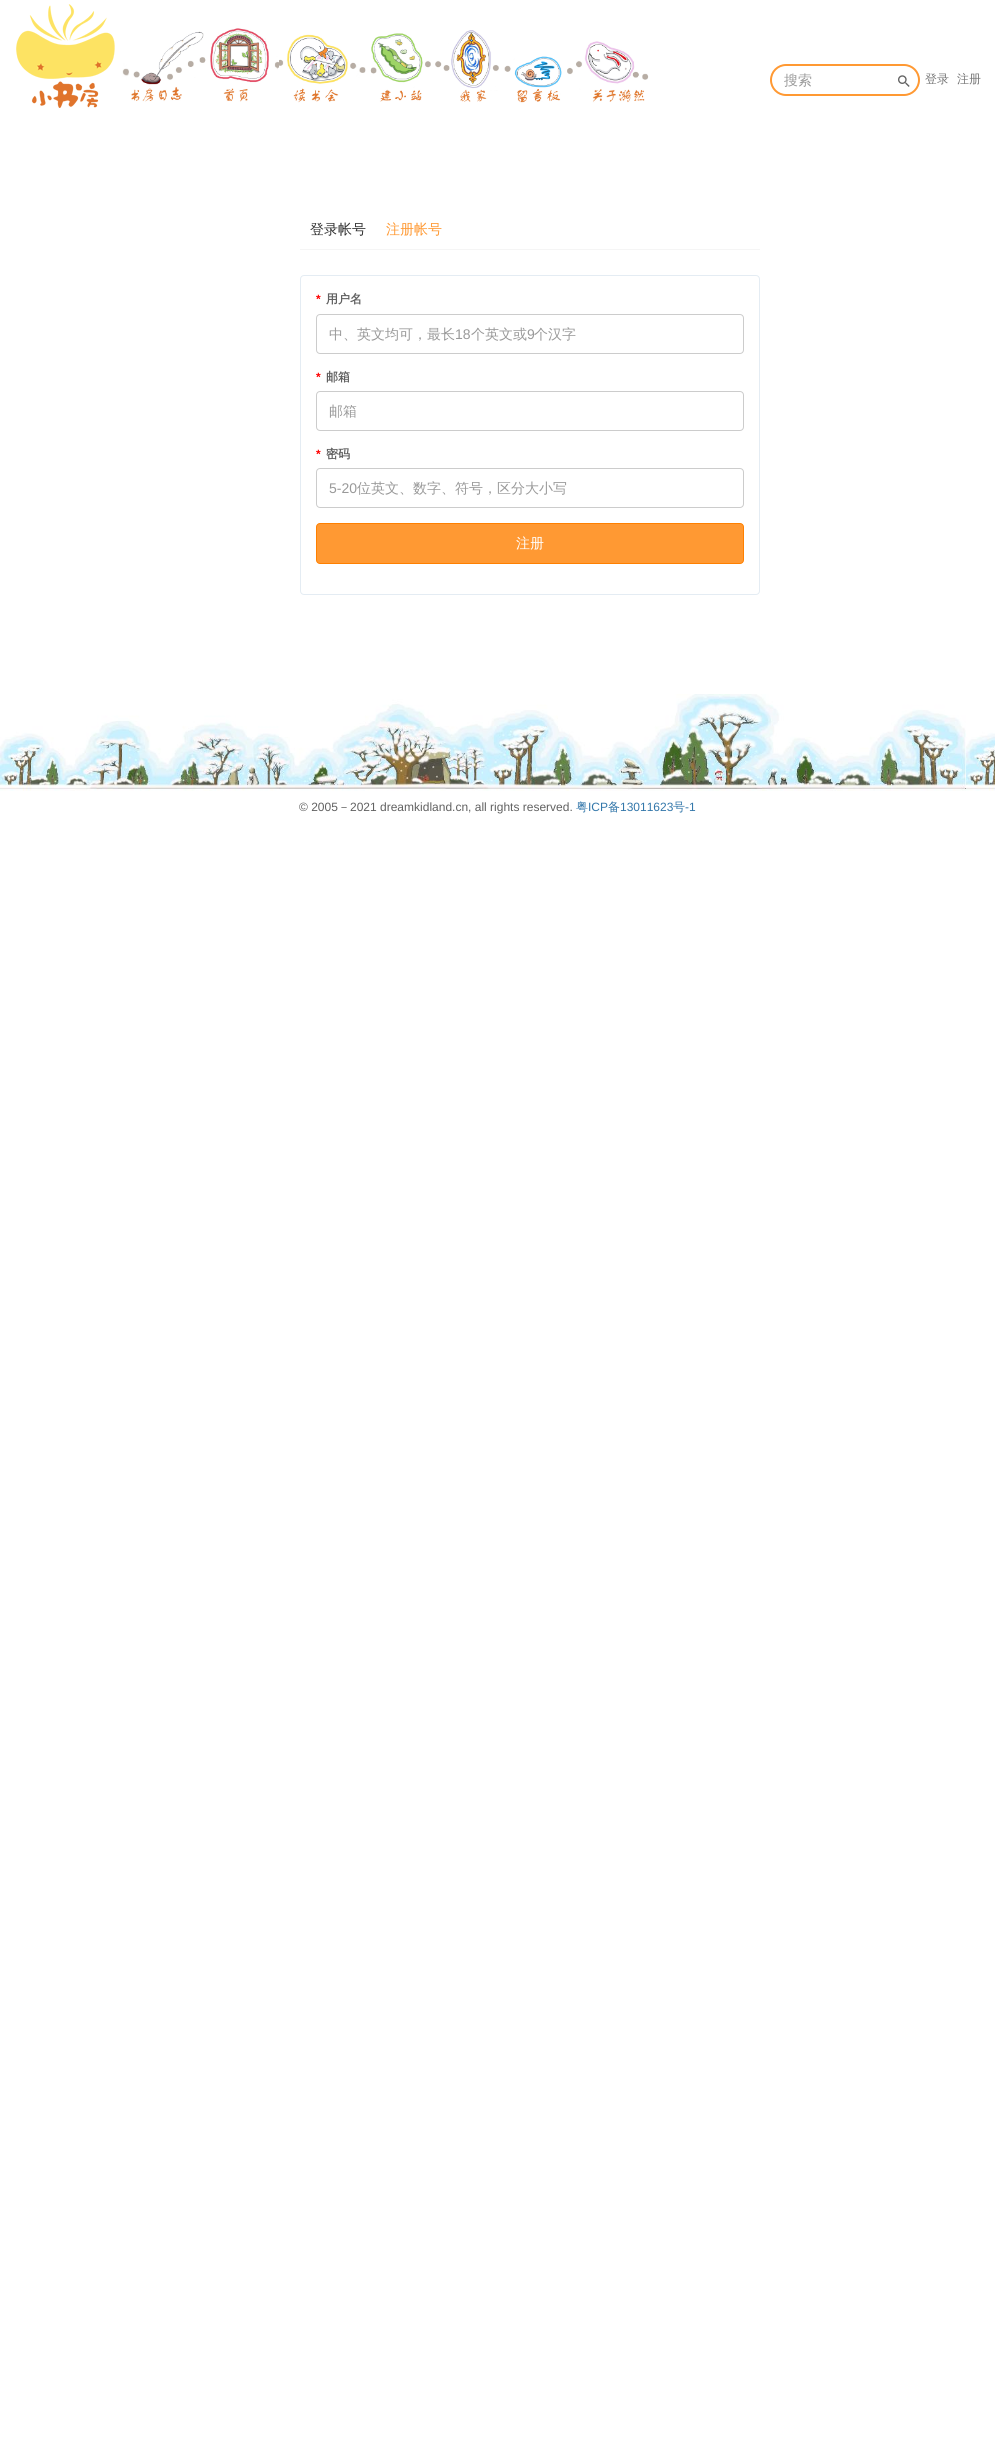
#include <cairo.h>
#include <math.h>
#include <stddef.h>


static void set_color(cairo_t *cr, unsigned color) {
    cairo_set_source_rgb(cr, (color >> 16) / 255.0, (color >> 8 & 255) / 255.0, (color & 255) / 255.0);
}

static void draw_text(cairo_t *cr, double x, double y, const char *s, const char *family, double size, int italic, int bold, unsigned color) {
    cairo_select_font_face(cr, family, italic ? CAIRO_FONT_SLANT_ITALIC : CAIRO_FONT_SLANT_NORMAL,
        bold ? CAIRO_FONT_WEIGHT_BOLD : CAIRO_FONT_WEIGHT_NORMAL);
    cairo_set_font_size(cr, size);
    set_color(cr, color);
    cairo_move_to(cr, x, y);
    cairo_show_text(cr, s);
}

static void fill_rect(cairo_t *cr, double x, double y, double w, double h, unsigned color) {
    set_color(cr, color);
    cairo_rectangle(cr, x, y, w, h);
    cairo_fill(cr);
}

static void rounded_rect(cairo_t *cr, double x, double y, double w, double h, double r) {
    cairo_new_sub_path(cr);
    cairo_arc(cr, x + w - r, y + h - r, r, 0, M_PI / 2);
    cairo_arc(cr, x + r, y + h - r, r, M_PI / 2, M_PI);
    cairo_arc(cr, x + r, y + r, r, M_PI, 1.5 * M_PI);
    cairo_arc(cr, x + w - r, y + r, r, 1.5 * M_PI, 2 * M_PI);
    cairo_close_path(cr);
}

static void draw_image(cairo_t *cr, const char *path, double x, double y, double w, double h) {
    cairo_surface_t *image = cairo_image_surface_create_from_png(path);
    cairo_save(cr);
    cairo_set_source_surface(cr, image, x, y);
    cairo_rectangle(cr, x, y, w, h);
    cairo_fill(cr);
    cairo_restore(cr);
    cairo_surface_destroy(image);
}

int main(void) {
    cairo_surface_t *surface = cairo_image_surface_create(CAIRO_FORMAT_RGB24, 995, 2458);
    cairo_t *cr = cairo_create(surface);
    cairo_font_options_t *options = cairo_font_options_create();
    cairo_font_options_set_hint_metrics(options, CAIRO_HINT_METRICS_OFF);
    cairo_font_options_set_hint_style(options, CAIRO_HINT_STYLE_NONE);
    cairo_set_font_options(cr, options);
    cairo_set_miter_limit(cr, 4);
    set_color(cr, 0xFFFFFF);
    cairo_paint(cr);
    draw_image(cr, "assets/img1.png", 16, 4, 99, 104);
    draw_image(cr, "assets/img2.png", 122, 31, 84, 71);
    draw_image(cr, "assets/img3.png", 210, 28, 69, 74);
    draw_image(cr, "assets/img4.png", 279, 34, 63, 69);
    draw_image(cr, "assets/img5.png", 342, 33, 89, 69);
    draw_image(cr, "assets/img6.png", 435, 30, 64, 72);
    draw_image(cr, "assets/img7.png", 504, 56, 74, 47);
    draw_image(cr, "assets/img8.png", 578, 41, 71, 62);
    rounded_rect(cr, 771, 65, 148, 30, 15);
    set_color(cr, 0xFF9933);
    cairo_stroke(cr);
    draw_text(cr, 784, 85, "搜索", "WenQuanYi Zen Hei Medium", 14, 0, 0, 0x999999);
    draw_image(cr, "assets/img9.png", 898, 75, 12, 12);
    draw_text(cr, 925, 83, "登录", "WenQuanYi Zen Hei Medium", 12, 0, 0, 0x777777);
    draw_text(cr, 957, 83, "注册", "WenQuanYi Zen Hei Medium", 12, 0, 0, 0x777777);
    fill_rect(cr, 300, 249, 460, 1, 0xF5F5F5);
    draw_text(cr, 310, 234, "登录帐号", "WenQuanYi Zen Hei Medium", 14, 0, 0, 0x313131);
    draw_text(cr, 386, 234, "注册帐号", "WenQuanYi Zen Hei Medium", 14, 0, 0, 0xFF9933);
    rounded_rect(cr, 300.5, 275.5, 459, 319, 3.5);
    set_color(cr, 0xE4ECF3);
    cairo_set_line_width(cr, 1);
    cairo_stroke(cr);
    draw_text(cr, 316, 303, "*", "Liberation Sans", 12, 0, 1, 0xFF0000);
    draw_text(cr, 326, 303, "用户名", "WenQuanYi Zen Hei", 12, 0, 1, 0x616161);
    rounded_rect(cr, 316.5, 314.5, 427, 39, 3.5);
    set_color(cr, 0xCCCCCC);
    cairo_stroke(cr);
    draw_text(cr, 329, 339, "中、英文均可，最长", "WenQuanYi Zen Hei Medium", 14, 0, 0, 0x999999);
    draw_text(cr, 455, 339, "18", "Liberation Sans", 14, 0, 0, 0x999999);
    draw_text(cr, 471, 339, "个英文或", "WenQuanYi Zen Hei Medium", 14, 0, 0, 0x999999);
    draw_text(cr, 527, 339, "9", "Liberation Sans", 14, 0, 0, 0x999999);
    draw_text(cr, 534, 339, "个汉字", "WenQuanYi Zen Hei Medium", 14, 0, 0, 0x999999);
    draw_text(cr, 316, 381, "*", "Liberation Sans", 12, 0, 1, 0xFF0000);
    draw_text(cr, 326, 381, "邮箱", "WenQuanYi Zen Hei", 12, 0, 1, 0x616161);
    rounded_rect(cr, 316.5, 391.5, 427, 39, 3.5);
    set_color(cr, 0xCCCCCC);
    cairo_stroke(cr);
    draw_text(cr, 329, 416, "邮箱", "WenQuanYi Zen Hei Medium", 14, 0, 0, 0x999999);
    draw_text(cr, 316, 458, "*", "Liberation Sans", 12, 0, 1, 0xFF0000);
    draw_text(cr, 326, 458, "密码", "WenQuanYi Zen Hei", 12, 0, 1, 0x616161);
    rounded_rect(cr, 316.5, 468.5, 427, 39, 3.5);
    set_color(cr, 0xCCCCCC);
    cairo_stroke(cr);
    draw_text(cr, 329, 493, "5-20", "Liberation Sans", 14, 0, 0, 0x999999);
    draw_text(cr, 357, 493, "位英文、数字、符号，区分大小写", "WenQuanYi Zen Hei Medium", 14, 0, 0, 0x999999);
    set_color(cr, 0xFF9933);
    rounded_rect(cr, 316.5, 523.5, 427, 40, 3.5);
    cairo_fill_preserve(cr);
    set_color(cr, 0xFF8000);
    cairo_stroke(cr);
    draw_text(cr, 516, 548, "注册", "WenQuanYi Zen Hei Medium", 14, 0, 0, 0xFFFFFF);
    draw_image(cr, "assets/img10.png", 0, 694, 995, 97);
    draw_text(cr, 299, 811, "© 2005", "Liberation Sans", 12, 0, 0, 0x616161);
    draw_text(cr, 338, 811, "－", "WenQuanYi Zen Hei Medium", 12, 0, 0, 0x616161);
    draw_text(cr, 350, 811, "2021 dreamkidland.cn, all rights reserved.", "Liberation Sans", 12, 0, 0, 0x616161);
    draw_text(cr, 576, 811, "粤", "WenQuanYi Zen Hei Medium", 12, 0, 0, 0x3377AA);
    draw_text(cr, 588, 811, "ICP", "Liberation Sans", 12, 0, 0, 0x3377AA);
    draw_text(cr, 608, 811, "备", "WenQuanYi Zen Hei Medium", 12, 0, 0, 0x3377AA);
    draw_text(cr, 620, 811, "13011623", "Liberation Sans", 12, 0, 0, 0x3377AA);
    draw_text(cr, 673, 811, "号", "WenQuanYi Zen Hei Medium", 12, 0, 0, 0x3377AA);
    draw_text(cr, 685, 811, "-1", "Liberation Sans", 12, 0, 0, 0x3377AA);
    cairo_surface_write_to_png(surface, "output.png");
    cairo_font_options_destroy(options);
    cairo_destroy(cr);
    cairo_surface_destroy(surface);
    return 0;
}
